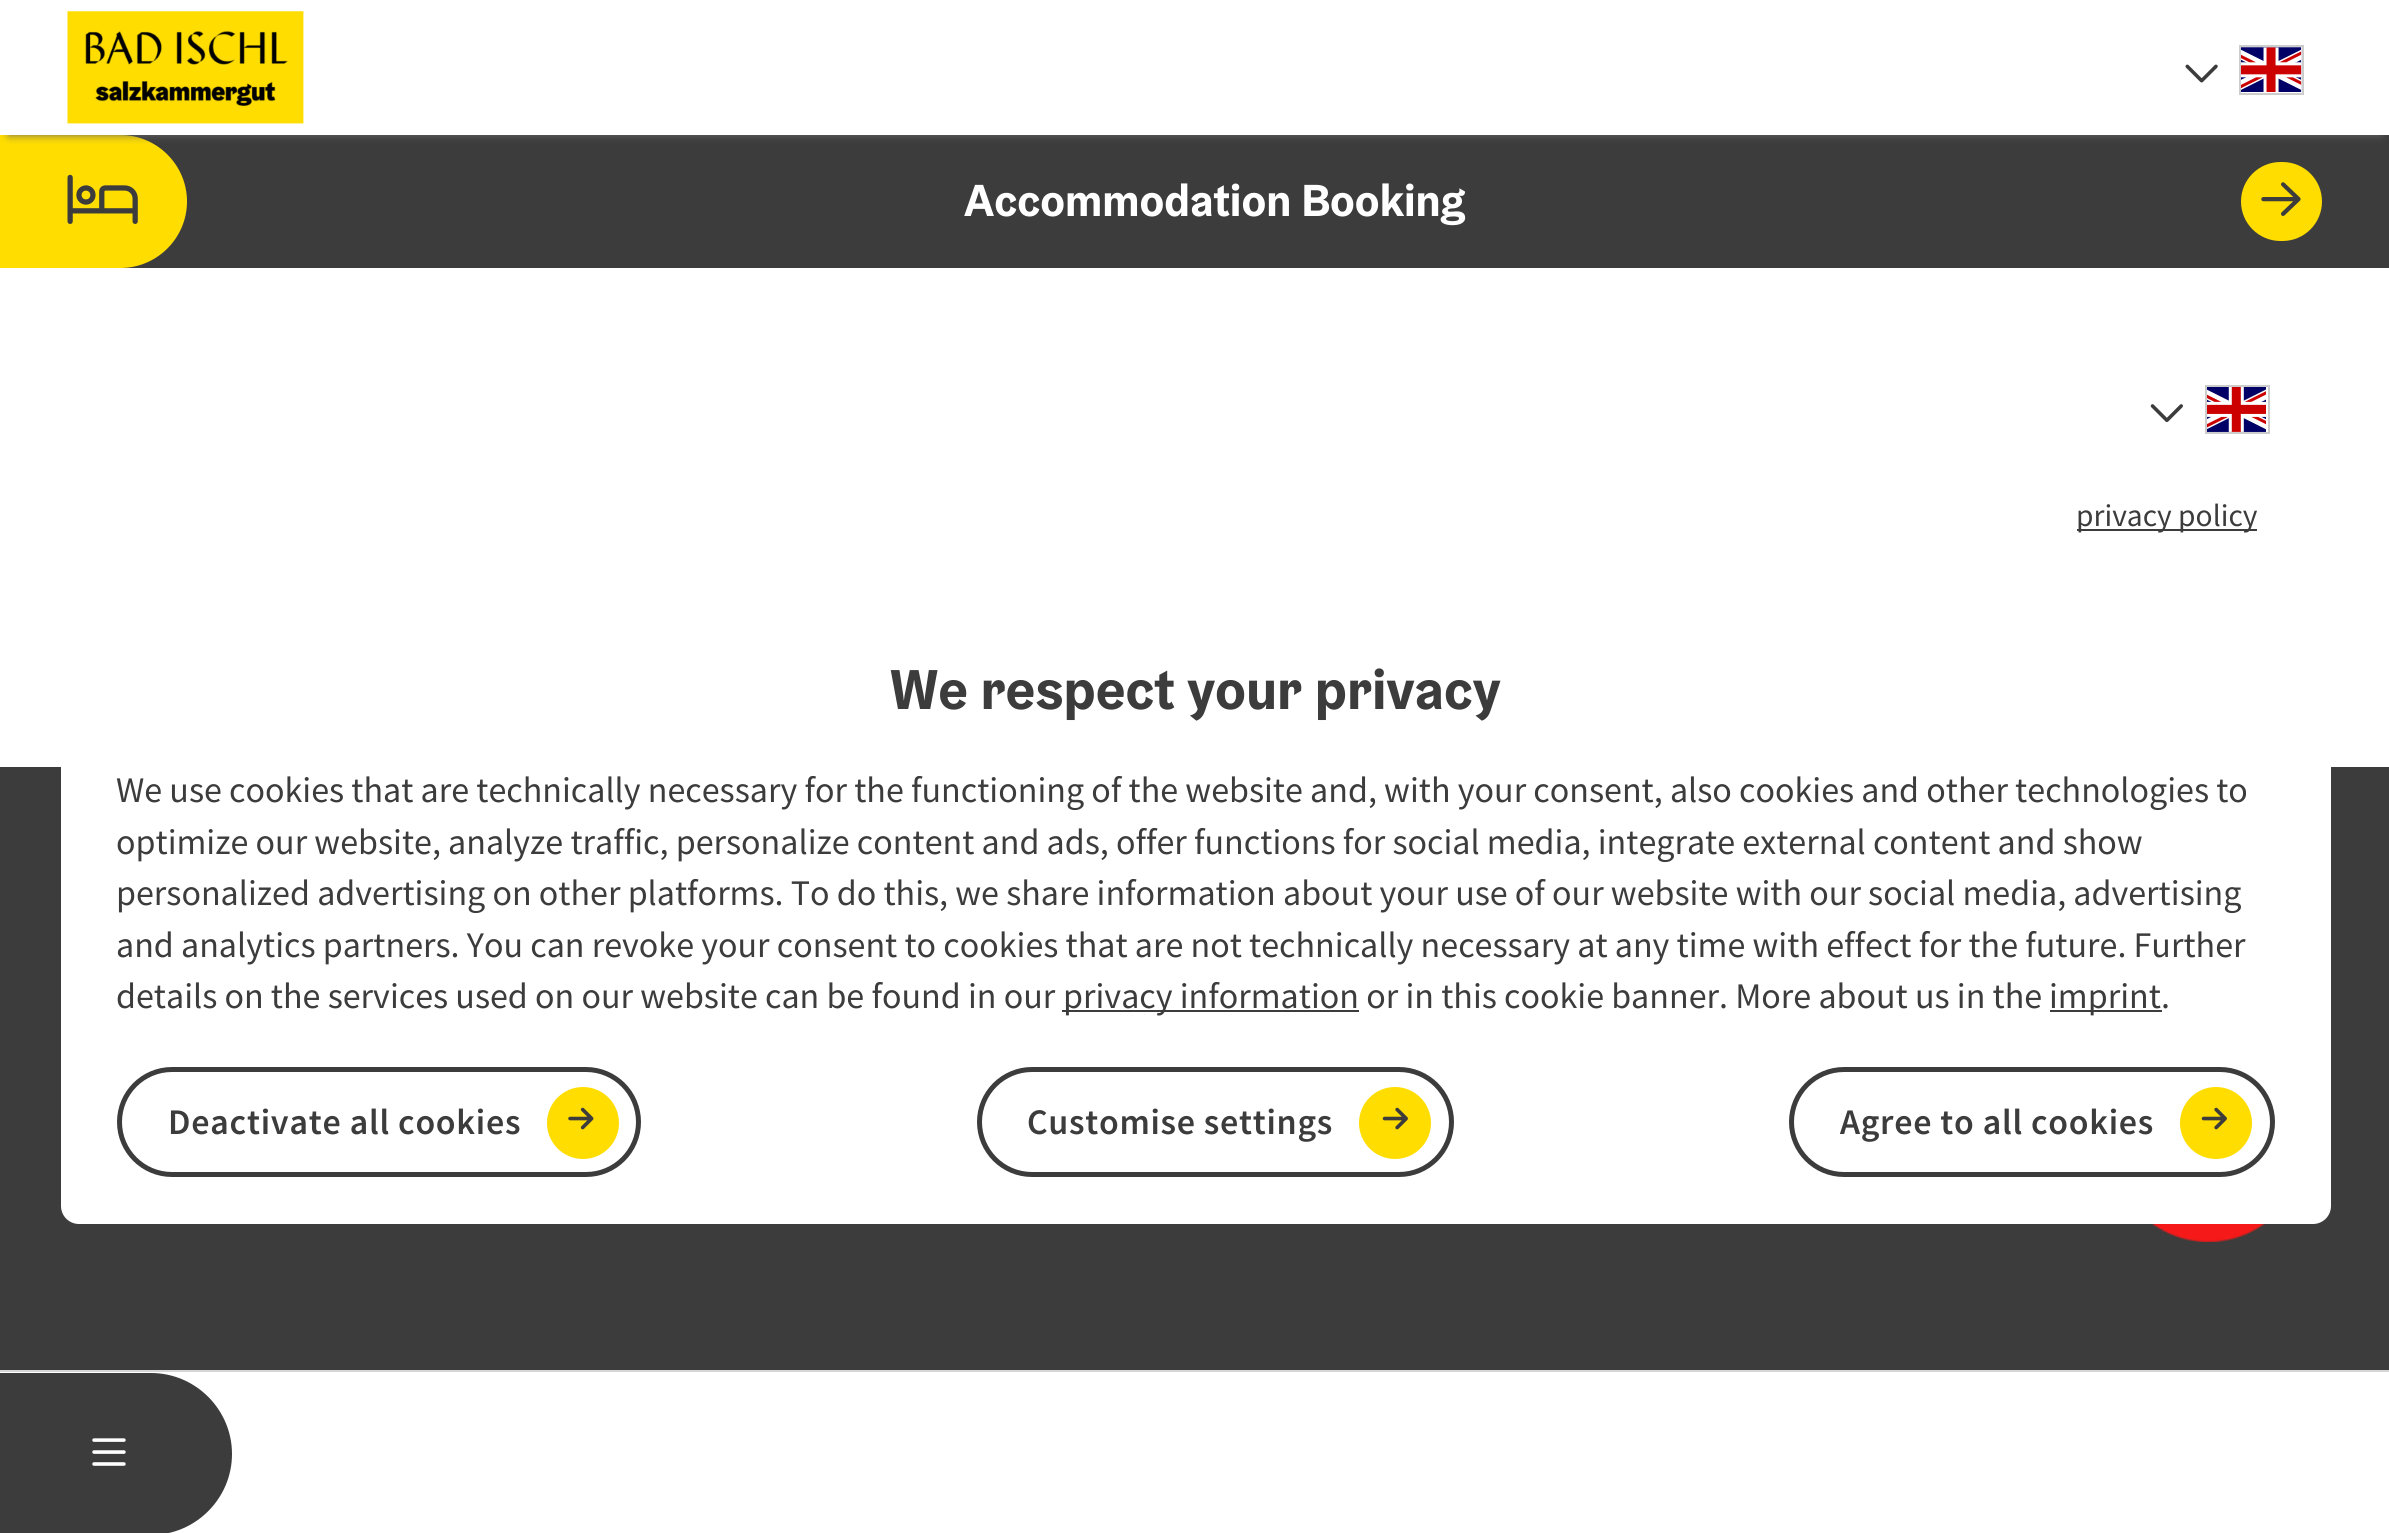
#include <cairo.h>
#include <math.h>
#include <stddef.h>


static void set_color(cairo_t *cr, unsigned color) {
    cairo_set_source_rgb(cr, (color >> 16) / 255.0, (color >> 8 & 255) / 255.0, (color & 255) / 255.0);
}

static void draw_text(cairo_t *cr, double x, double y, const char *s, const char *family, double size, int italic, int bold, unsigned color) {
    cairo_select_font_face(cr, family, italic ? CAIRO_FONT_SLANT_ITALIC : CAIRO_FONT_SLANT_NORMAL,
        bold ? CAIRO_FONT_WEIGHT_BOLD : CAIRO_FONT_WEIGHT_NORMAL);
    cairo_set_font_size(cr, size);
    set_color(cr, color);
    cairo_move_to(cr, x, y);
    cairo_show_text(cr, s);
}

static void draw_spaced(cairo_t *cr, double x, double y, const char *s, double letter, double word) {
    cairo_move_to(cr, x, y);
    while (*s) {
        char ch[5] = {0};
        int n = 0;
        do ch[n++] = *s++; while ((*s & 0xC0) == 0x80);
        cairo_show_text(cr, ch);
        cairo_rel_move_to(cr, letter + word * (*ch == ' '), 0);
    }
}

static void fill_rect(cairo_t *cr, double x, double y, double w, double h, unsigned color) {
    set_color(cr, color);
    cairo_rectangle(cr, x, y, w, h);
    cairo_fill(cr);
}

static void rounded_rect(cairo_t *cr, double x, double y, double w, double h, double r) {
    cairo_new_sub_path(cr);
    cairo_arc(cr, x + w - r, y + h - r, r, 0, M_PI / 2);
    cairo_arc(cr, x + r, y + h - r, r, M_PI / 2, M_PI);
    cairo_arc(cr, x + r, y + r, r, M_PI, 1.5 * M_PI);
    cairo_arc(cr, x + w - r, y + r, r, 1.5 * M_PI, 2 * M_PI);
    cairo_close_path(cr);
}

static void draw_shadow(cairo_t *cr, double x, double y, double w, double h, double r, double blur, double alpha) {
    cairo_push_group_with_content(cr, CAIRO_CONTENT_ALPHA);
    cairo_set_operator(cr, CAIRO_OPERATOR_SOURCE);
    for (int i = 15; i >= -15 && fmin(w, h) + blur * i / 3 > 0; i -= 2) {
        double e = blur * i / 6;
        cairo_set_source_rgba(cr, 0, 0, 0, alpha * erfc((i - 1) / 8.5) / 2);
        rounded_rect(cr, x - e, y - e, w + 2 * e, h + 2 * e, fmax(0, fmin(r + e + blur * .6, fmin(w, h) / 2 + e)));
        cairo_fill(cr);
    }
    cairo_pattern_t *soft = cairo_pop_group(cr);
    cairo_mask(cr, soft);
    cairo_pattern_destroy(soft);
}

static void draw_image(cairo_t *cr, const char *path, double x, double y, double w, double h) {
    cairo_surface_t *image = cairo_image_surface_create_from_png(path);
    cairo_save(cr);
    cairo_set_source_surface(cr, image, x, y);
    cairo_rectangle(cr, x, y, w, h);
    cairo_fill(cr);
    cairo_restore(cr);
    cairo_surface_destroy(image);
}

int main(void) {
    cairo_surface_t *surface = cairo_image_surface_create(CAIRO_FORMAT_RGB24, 2389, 1533);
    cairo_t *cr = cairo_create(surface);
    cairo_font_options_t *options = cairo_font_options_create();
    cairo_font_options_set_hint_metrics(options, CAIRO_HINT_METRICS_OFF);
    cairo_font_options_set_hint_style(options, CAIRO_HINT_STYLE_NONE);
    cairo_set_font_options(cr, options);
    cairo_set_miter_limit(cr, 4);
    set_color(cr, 0xFFFFFF);
    cairo_paint(cr);
    fill_rect(cr, 121, 135, 2268, 133, 0x3C3C3C);
    set_color(cr, 0xFFDD00);
    cairo_new_path(cr);
    cairo_move_to(cr, 0, 135);
    cairo_line_to(cr, 120.5, 135);
    cairo_curve_to(cr, 157, 135, 187, 165, 187, 201.5);
    cairo_curve_to(cr, 187, 238, 157, 268, 120.5, 268);
    cairo_line_to(cr, 0, 268);
    cairo_close_path(cr);
    cairo_fill(cr);
    cairo_save(cr);
    cairo_rectangle(cr, 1, 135, 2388, 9);
    cairo_clip(cr);
    set_color(cr, 0x666666);
    draw_shadow(cr, 9, 18, 2372, 117, 0, 4.5, 1);
    cairo_restore(cr);
    draw_image(cr, "assets/img1.png", 67, 11, 237, 113);
    draw_image(cr, "assets/img2.png", 2185, 64, 33, 19);
    draw_image(cr, "assets/img3.png", 2241, 47, 61, 45);
    cairo_rectangle(cr, 2240, 46, 63, 48);
    set_color(cr, 0xCCCCCC);
    cairo_stroke(cr);
    fill_rect(cr, 0, 1370, 2389, 2, 0xD6D6D6);
    set_color(cr, 0x3C3C3C);
    cairo_new_path(cr);
    cairo_move_to(cr, 0, 1373);
    cairo_line_to(cr, 151, 1373);
    cairo_curve_to(cr, 195.5, 1373, 232, 1409.5, 232, 1454);
    cairo_curve_to(cr, 232, 1498.5, 195.5, 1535, 151, 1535);
    cairo_line_to(cr, 0, 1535);
    cairo_close_path(cr);
    cairo_fill(cr);
    draw_image(cr, "assets/img4.png", 92, 1438, 34, 28);
    draw_image(cr, "assets/img5.png", 67, 174, 71, 50);
    draw_text(cr, 964, 216, "Accommodation Booking", "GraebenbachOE", 45, 0, 1, 0xFFFFFF);
    set_color(cr, 0xFFDD00);
    rounded_rect(cr, 2241, 162, 81, 79, 39.5);
    cairo_fill(cr);
    draw_image(cr, "assets/img6.png", 2261, 182, 40, 34);
    fill_rect(cr, 0, 767, 2389, 603, 0x3C3C3C);
    draw_image(cr, "assets/img7.png", 2151, 1224, 115, 18);
    set_color(cr, 0xFFFFFF);
    rounded_rect(cr, 61, 311, 2270, 913, 18);
    cairo_fill(cr);
    draw_image(cr, "assets/img8.png", 2150, 404, 33, 19);
    draw_image(cr, "assets/img9.png", 2207, 387, 59, 45);
    cairo_rectangle(cr, 2206, 386, 63, 47);
    set_color(cr, 0xCCCCCC);
    cairo_stroke(cr);
    fill_rect(cr, 2077, 529, 180, 2, 0x3C3C3C);
    draw_text(cr, 2076, 526, "privacy policy", "Source Sans Pro", 31.5, 0, 0, 0x3C3C3C);
    draw_text(cr, 890, 709, "We respect your privacy", "GraebenbachOE", 56.25, 0, 1, 0x3C3C3C);
    draw_text(cr, 116, 802, "We use cookies that are technically necessary for the functioning of the website and, with your consent, also cookies and other technologies to", "Source Sans Pro", 36, 0, 0, 0x3C3C3C);
    draw_text(cr, 116, 854, "optimize our website, analyze traffic, personalize content and ads, offer functions for social media, integrate external content and show", "Source Sans Pro", 36, 0, 0, 0x3C3C3C);
    draw_text(cr, 116, 905, "personalized advertising on other platforms. To do this, we share information about your use of our website with our social media, advertising", "Source Sans Pro", 36, 0, 0, 0x3C3C3C);
    draw_text(cr, 116, 957, "and analytics partners. You can revoke your consent to cookies that are not technically necessary at any time with effect for the future. Further", "Source Sans Pro", 36, 0, 0, 0x3C3C3C);
    draw_text(cr, 116, 1008, "details on the services used on our website can be found in our", "Source Sans Pro", 36, 0, 0, 0x3C3C3C);
    fill_rect(cr, 1062, 1010, 297, 2, 0x3C3C3C);
    draw_text(cr, 1063, 1008, "privacy information or in this cookie banner. More about us in the", "Source Sans Pro", 36, 0, 0, 0x3C3C3C);
    fill_rect(cr, 2050, 1010, 112, 2, 0x3C3C3C);
    draw_text(cr, 2049, 1008, "imprint.", "Source Sans Pro", 36, 0, 0, 0x3C3C3C);
    rounded_rect(cr, 119.5, 1069.5, 519, 105, 52.5);
    cairo_set_line_width(cr, 5);
    cairo_stroke(cr);
    set_color(cr, 0xFFDD00);
    cairo_arc(cr, 583, 1123, 36, 0, 2 * M_PI);
    cairo_fill(cr);
    cairo_select_font_face(cr, "Source Sans Pro SemiBold", CAIRO_FONT_SLANT_NORMAL, CAIRO_FONT_WEIGHT_NORMAL);
    set_color(cr, 0x3C3C3C);
    draw_spaced(cr, 168, 1134, "Deactivate all cookies", 0.7, 0);
    draw_image(cr, "assets/img10.png", 568, 1107, 26, 23);
    rounded_rect(cr, 979.5, 1069.5, 472, 105, 52.5);
    cairo_stroke(cr);
    set_color(cr, 0xFFDD00);
    cairo_arc(cr, 1395, 1123, 36, 0, 2 * M_PI);
    cairo_fill(cr);
    set_color(cr, 0x3C3C3C);
    draw_spaced(cr, 1027, 1134, "Customise settings", 0.7, 0);
    draw_image(cr, "assets/img11.png", 1382, 1107, 26, 23);
    rounded_rect(cr, 1791.5, 1069.5, 481, 105, 52.5);
    cairo_stroke(cr);
    set_color(cr, 0xFFDD00);
    cairo_arc(cr, 2216, 1123, 36, 0, 2 * M_PI);
    cairo_fill(cr);
    set_color(cr, 0x3C3C3C);
    draw_spaced(cr, 1840, 1134, "Agree to all cookies", 0.7, 0);
    draw_image(cr, "assets/img11.png", 2201, 1107, 26, 23);
    cairo_surface_write_to_png(surface, "output.png");
    cairo_font_options_destroy(options);
    cairo_destroy(cr);
    cairo_surface_destroy(surface);
    return 0;
}
